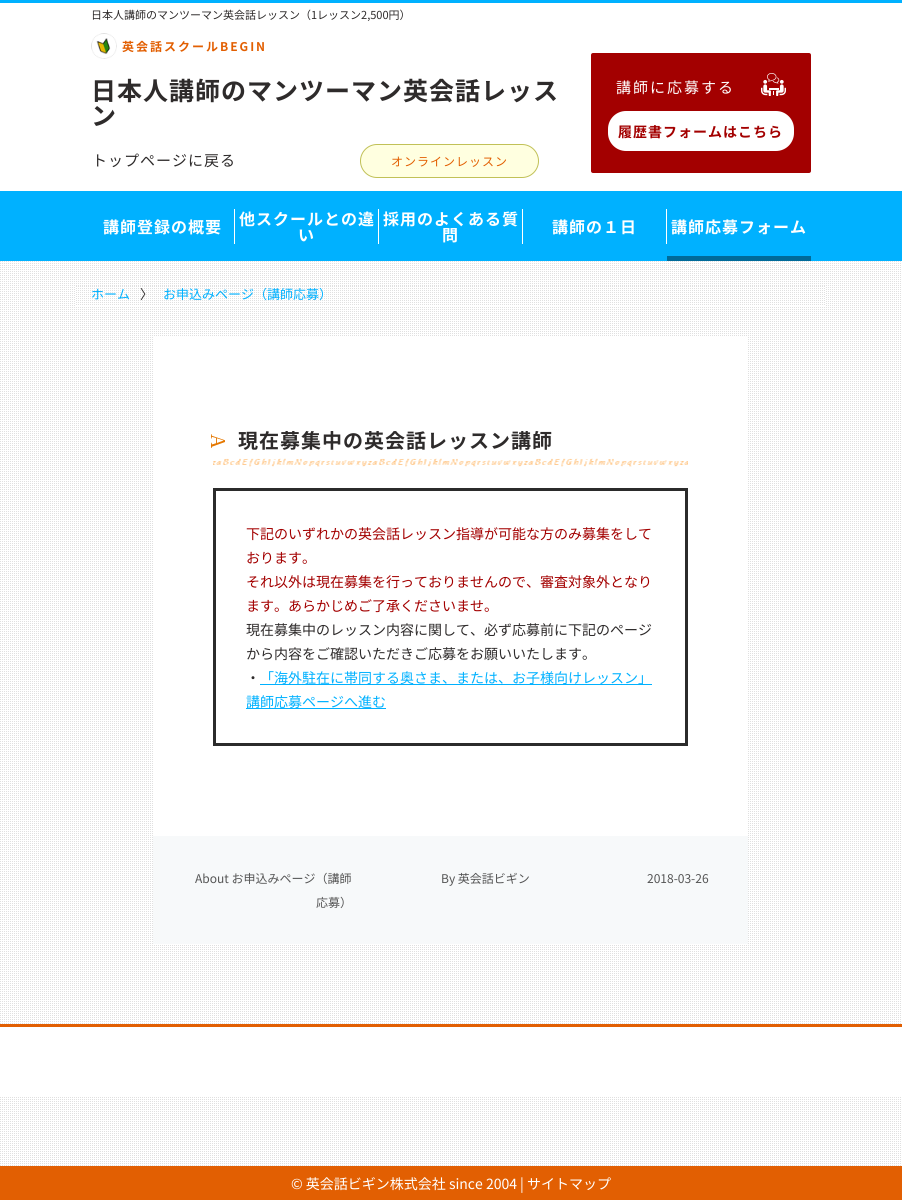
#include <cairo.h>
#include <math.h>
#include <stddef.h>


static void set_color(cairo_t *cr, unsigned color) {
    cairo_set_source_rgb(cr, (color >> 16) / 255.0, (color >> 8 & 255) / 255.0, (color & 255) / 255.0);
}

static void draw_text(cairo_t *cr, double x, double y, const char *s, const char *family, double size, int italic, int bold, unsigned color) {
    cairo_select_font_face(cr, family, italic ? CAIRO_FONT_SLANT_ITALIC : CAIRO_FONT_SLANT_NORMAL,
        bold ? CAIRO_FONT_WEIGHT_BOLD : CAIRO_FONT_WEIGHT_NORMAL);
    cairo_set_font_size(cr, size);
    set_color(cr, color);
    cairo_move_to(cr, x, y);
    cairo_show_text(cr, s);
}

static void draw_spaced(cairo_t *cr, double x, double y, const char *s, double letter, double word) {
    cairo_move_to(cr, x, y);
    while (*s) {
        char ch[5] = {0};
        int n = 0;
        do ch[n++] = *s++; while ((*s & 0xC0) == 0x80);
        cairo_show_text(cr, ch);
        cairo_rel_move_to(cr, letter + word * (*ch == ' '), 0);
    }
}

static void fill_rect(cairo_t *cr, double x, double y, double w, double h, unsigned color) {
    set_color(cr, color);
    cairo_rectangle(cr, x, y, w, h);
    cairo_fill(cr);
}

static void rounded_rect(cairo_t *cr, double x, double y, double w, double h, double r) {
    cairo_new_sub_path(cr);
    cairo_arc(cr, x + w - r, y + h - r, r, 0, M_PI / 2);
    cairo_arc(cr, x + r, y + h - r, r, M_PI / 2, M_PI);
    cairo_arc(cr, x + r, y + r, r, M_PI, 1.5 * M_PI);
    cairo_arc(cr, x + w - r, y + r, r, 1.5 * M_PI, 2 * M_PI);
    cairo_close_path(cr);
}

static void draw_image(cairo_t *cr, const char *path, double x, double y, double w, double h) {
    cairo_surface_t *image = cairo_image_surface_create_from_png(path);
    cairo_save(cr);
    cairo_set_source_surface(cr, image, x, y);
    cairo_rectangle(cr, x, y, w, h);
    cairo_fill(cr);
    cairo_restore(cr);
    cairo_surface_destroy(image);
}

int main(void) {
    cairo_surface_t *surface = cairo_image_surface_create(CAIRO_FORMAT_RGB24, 902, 1200);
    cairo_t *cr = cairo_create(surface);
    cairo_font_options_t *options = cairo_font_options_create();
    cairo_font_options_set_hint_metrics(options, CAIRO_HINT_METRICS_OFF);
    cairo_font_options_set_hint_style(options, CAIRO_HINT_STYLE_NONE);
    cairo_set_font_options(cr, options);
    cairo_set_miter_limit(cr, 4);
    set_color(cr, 0xFFFFFF);
    cairo_paint(cr);
    draw_image(cr, "assets/img1.png", 0, 261, 901, 905);
    fill_rect(cr, 0, 0, 902, 3, 0x00B1FF);
    draw_text(cr, 91, 19, "日本人講師のマンツーマン英会話レッスン（1レッスン2,500円）", "Noto Sans JP", 11, 0, 0, 0x2E2B2B);
    draw_image(cr, "assets/img2.png", 91, 33, 26, 26);
    cairo_select_font_face(cr, "Noto Sans JP", CAIRO_FONT_SLANT_NORMAL, CAIRO_FONT_WEIGHT_BOLD);
    cairo_set_font_size(cr, 12);
    set_color(cr, 0xE25F02);
    draw_spaced(cr, 122, 51, "英会話スクールBEGIN", 2, 0);
    cairo_set_font_size(cr, 25);
    set_color(cr, 0x2E2B2B);
    draw_spaced(cr, 91, 100, "日本人講師のマンツーマン英会話レッス", 1, 0);
    draw_spaced(cr, 91, 125, "ン", 1, 0);
    cairo_select_font_face(cr, "Noto Sans JP", CAIRO_FONT_SLANT_NORMAL, CAIRO_FONT_WEIGHT_NORMAL);
    cairo_set_font_size(cr, 15);
    draw_spaced(cr, 92, 166, "トップページに戻る", 1, 0);
    set_color(cr, 0xFFFFE0);
    rounded_rect(cr, 360.5, 144.5, 178, 33, 16.5);
    cairo_fill_preserve(cr);
    set_color(cr, 0xC1C157);
    cairo_set_line_width(cr, 1);
    cairo_stroke(cr);
    cairo_set_font_size(cr, 12);
    set_color(cr, 0xE25F02);
    draw_spaced(cr, 391, 166, "オンラインレッスン", 1, 0);
    set_color(cr, 0xA30000);
    rounded_rect(cr, 591, 53, 220, 120, 2);
    cairo_fill(cr);
    cairo_set_font_size(cr, 15);
    set_color(cr, 0xFFFFFF);
    draw_spaced(cr, 616, 93, "講師に応募する", 2, 0);
    draw_image(cr, "assets/img3.png", 761, 73, 25, 23);
    rounded_rect(cr, 607, 110, 188, 42, 19);
    cairo_fill_preserve(cr);
    set_color(cr, 0xA30000);
    cairo_set_line_width(cr, 2);
    cairo_stroke(cr);
    cairo_select_font_face(cr, "Noto Sans JP", CAIRO_FONT_SLANT_NORMAL, CAIRO_FONT_WEIGHT_BOLD);
    cairo_set_font_size(cr, 14);
    draw_spaced(cr, 618, 137, "履歴書フォームはこちら", 1, 0);
    fill_rect(cr, 0, 191, 902, 70, 0x00B1FF);
    cairo_set_font_size(cr, 16);
    set_color(cr, 0xFFFFFF);
    draw_spaced(cr, 103, 233, "講師登録の概要", 1, 0);
    fill_rect(cr, 234, 209, 1, 35, 0xFFFFFF);
    draw_spaced(cr, 239, 225, "他スクールとの違", 1, 0);
    fill_rect(cr, 378, 209, 1, 35, 0xFFFFFF);
    draw_spaced(cr, 298, 241, "い", 1, 0);
    draw_spaced(cr, 383, 225, "採用のよくある質", 1, 0);
    fill_rect(cr, 522, 209, 1, 35, 0xFFFFFF);
    draw_spaced(cr, 442, 241, "問", 1, 0);
    draw_spaced(cr, 552, 233, "講師の１日", 1, 0);
    fill_rect(cr, 666, 209, 1, 35, 0xFFFFFF);
    draw_spaced(cr, 671, 233, "講師応募フォーム", 1, 0);
    fill_rect(cr, 667, 256, 144, 5, 0x006A99);
    draw_image(cr, "assets/img4.png", 76, 286, 749, 20);
    draw_text(cr, 91, 299, "ホーム", "Noto Sans JP", 13, 0, 0, 0x00B1FF);
    draw_text(cr, 140, 299, "〉", "Noto Sans JP", 13, 0, 0, 0x2E2B2B);
    draw_text(cr, 163, 299, "お申込みページ（講師応募）", "Noto Sans JP", 13, 0, 0, 0x00B1FF);
    fill_rect(cr, 154, 337, 593, 499, 0xFFFFFF);
    draw_image(cr, "assets/img5.png", 213, 458, 475, 9);
    draw_image(cr, "assets/img6.png", 211, 434, 14, 14);
    cairo_select_font_face(cr, "Noto Sans JP", CAIRO_FONT_SLANT_NORMAL, CAIRO_FONT_WEIGHT_BOLD);
    cairo_set_font_size(cr, 20);
    set_color(cr, 0x2E2B2B);
    draw_spaced(cr, 238, 448, "現在募集中の英会話レッスン講師", 1, 0);
    cairo_rectangle(cr, 214.5, 489.5, 472, 255);
    set_color(cr, 0x2B2B2B);
    cairo_set_line_width(cr, 3);
    cairo_stroke(cr);
    draw_text(cr, 246, 539, "下記のいずれかの英会話レッスン指導が可能な方のみ募集をして", "Noto Sans JP", 14, 0, 0, 0xA30000);
    draw_text(cr, 246, 563, "おります。", "Noto Sans JP", 14, 0, 0, 0xA30000);
    draw_text(cr, 246, 587, "それ以外は現在募集を行っておりませんので、審査対象外となり", "Noto Sans JP", 14, 0, 0, 0xA30000);
    draw_text(cr, 246, 611, "ます。あらかじめご了承くださいませ。", "Noto Sans JP", 14, 0, 0, 0xA30000);
    draw_text(cr, 246, 635, "現在募集中のレッスン内容に関して、必ず応募前に下記のページ", "Noto Sans JP", 14, 0, 0, 0x2E2B2B);
    draw_text(cr, 246, 659, "から内容をご確認いただきご応募をお願いいたします。", "Noto Sans JP", 14, 0, 0, 0x2E2B2B);
    draw_text(cr, 246, 683, "・", "Noto Sans JP", 14, 0, 0, 0x2E2B2B);
    fill_rect(cr, 260, 684, 392, 1, 0x00B1FF);
    draw_text(cr, 260, 683, "「海外駐在に帯同する奥さま、または、お子様向けレッスン」", "Noto Sans JP", 14, 0, 0, 0x00B1FF);
    fill_rect(cr, 246, 708, 140, 1, 0x00B1FF);
    draw_text(cr, 246, 707, "講師応募ページへ進む", "Noto Sans JP", 14, 0, 0, 0x00B1FF);
    fill_rect(cr, 153, 836, 595, 108, 0xF7F9FA);
    draw_text(cr, 195, 883, "About お申込みページ（講師", "Noto Sans JP", 12, 0, 0, 0x555555);
    draw_text(cr, 316, 907, "応募）", "Noto Sans JP", 12, 0, 0, 0x555555);
    draw_text(cr, 441, 883, "By 英会話ビギン", "Noto Sans JP", 12, 0, 0, 0x555555);
    draw_text(cr, 647, 883, "2018-03-26", "Noto Sans JP", 12, 0, 0, 0x555555);
    fill_rect(cr, 0, 1027, 901, 69, 0xFFFFFF);
    fill_rect(cr, 0, 1024, 902, 3, 0xE25F02);
    fill_rect(cr, 0, 1166, 902, 34, 0xE25F02);
    draw_text(cr, 291, 1189, "© 英会話ビギン株式会社 since 2004 | サイトマップ", "Noto Sans JP", 14, 0, 0, 0xFFFFFF);
    cairo_surface_write_to_png(surface, "output.png");
    cairo_font_options_destroy(options);
    cairo_destroy(cr);
    cairo_surface_destroy(surface);
    return 0;
}
